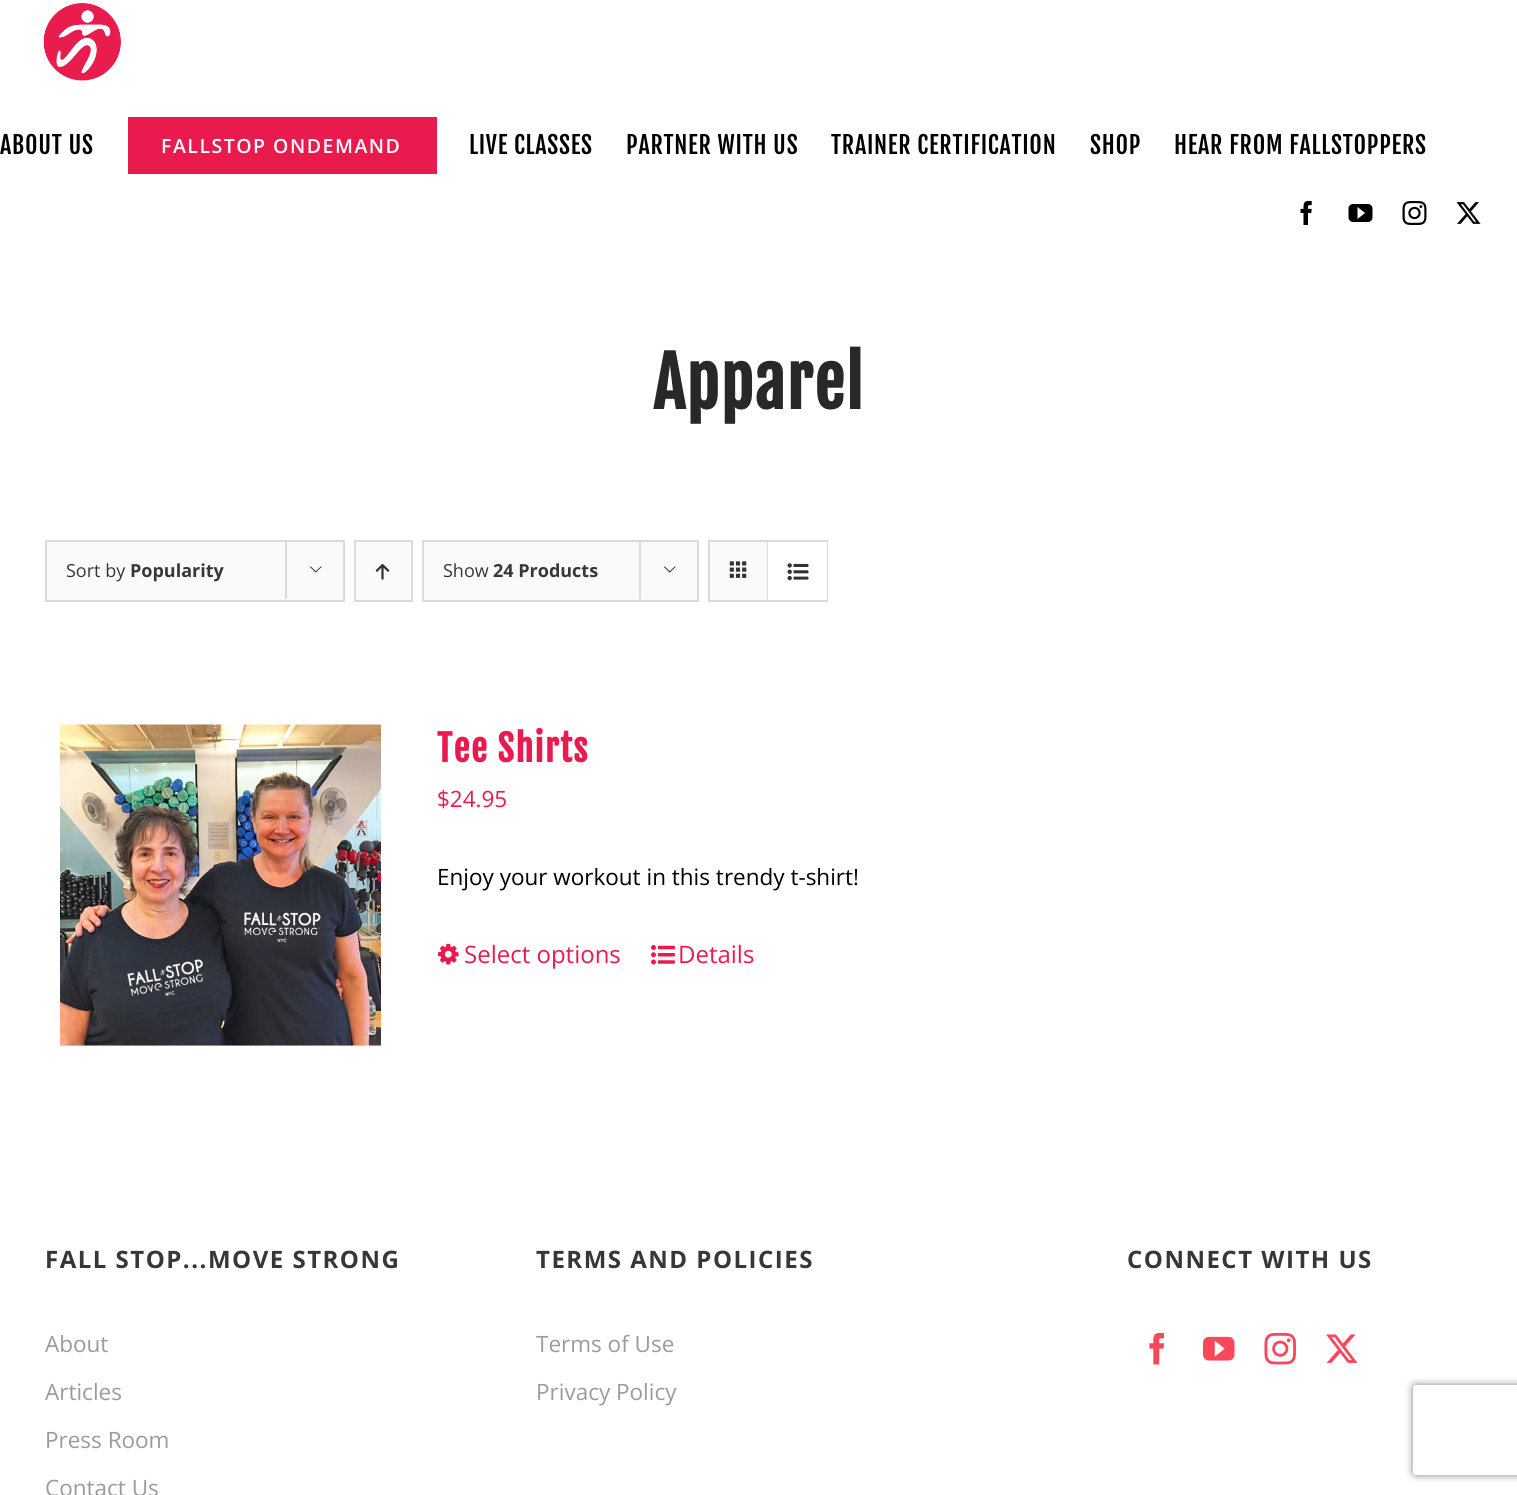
#include <cairo.h>
#include <math.h>
#include <stddef.h>


static void set_color(cairo_t *cr, unsigned color) {
    cairo_set_source_rgb(cr, (color >> 16) / 255.0, (color >> 8 & 255) / 255.0, (color & 255) / 255.0);
}

static void draw_text(cairo_t *cr, double x, double y, const char *s, const char *family, double size, int italic, int bold, unsigned color) {
    cairo_select_font_face(cr, family, italic ? CAIRO_FONT_SLANT_ITALIC : CAIRO_FONT_SLANT_NORMAL,
        bold ? CAIRO_FONT_WEIGHT_BOLD : CAIRO_FONT_WEIGHT_NORMAL);
    cairo_set_font_size(cr, size);
    set_color(cr, color);
    cairo_move_to(cr, x, y);
    cairo_show_text(cr, s);
}

static void draw_spaced(cairo_t *cr, double x, double y, const char *s, double letter, double word) {
    cairo_move_to(cr, x, y);
    while (*s) {
        char ch[5] = {0};
        int n = 0;
        do ch[n++] = *s++; while ((*s & 0xC0) == 0x80);
        cairo_show_text(cr, ch);
        cairo_rel_move_to(cr, letter + word * (*ch == ' '), 0);
    }
}

static void fill_rect(cairo_t *cr, double x, double y, double w, double h, unsigned color) {
    set_color(cr, color);
    cairo_rectangle(cr, x, y, w, h);
    cairo_fill(cr);
}

static void rounded_rect(cairo_t *cr, double x, double y, double w, double h, double r) {
    cairo_new_sub_path(cr);
    cairo_arc(cr, x + w - r, y + h - r, r, 0, M_PI / 2);
    cairo_arc(cr, x + r, y + h - r, r, M_PI / 2, M_PI);
    cairo_arc(cr, x + r, y + r, r, M_PI, 1.5 * M_PI);
    cairo_arc(cr, x + w - r, y + r, r, 1.5 * M_PI, 2 * M_PI);
    cairo_close_path(cr);
}

static void draw_shadow(cairo_t *cr, double x, double y, double w, double h, double r, double blur, double alpha) {
    cairo_push_group_with_content(cr, CAIRO_CONTENT_ALPHA);
    cairo_set_operator(cr, CAIRO_OPERATOR_SOURCE);
    for (int i = 15; i >= -15 && fmin(w, h) + blur * i / 3 > 0; i -= 2) {
        double e = blur * i / 6;
        cairo_set_source_rgba(cr, 0, 0, 0, alpha * erfc((i - 1) / 8.5) / 2);
        rounded_rect(cr, x - e, y - e, w + 2 * e, h + 2 * e, fmax(0, fmin(r + e + blur * .6, fmin(w, h) / 2 + e)));
        cairo_fill(cr);
    }
    cairo_pattern_t *soft = cairo_pop_group(cr);
    cairo_mask(cr, soft);
    cairo_pattern_destroy(soft);
}

static void draw_image(cairo_t *cr, const char *path, double x, double y, double w, double h) {
    cairo_surface_t *image = cairo_image_surface_create_from_png(path);
    cairo_save(cr);
    cairo_set_source_surface(cr, image, x, y);
    cairo_rectangle(cr, x, y, w, h);
    cairo_fill(cr);
    cairo_restore(cr);
    cairo_surface_destroy(image);
}

int main(void) {
    cairo_surface_t *surface = cairo_image_surface_create(CAIRO_FORMAT_RGB24, 1517, 1495);
    cairo_t *cr = cairo_create(surface);
    cairo_font_options_t *options = cairo_font_options_create();
    cairo_font_options_set_hint_metrics(options, CAIRO_HINT_METRICS_OFF);
    cairo_font_options_set_hint_style(options, CAIRO_HINT_STYLE_NONE);
    cairo_set_font_options(cr, options);
    cairo_set_miter_limit(cr, 4);
    set_color(cr, 0xFFFFFF);
    cairo_paint(cr);
    draw_image(cr, "assets/img1.png", 43, 3, 78, 78);
    cairo_select_font_face(cr, "Fjalla One", CAIRO_FONT_SLANT_NORMAL, CAIRO_FONT_WEIGHT_NORMAL);
    cairo_set_font_size(cr, 24);
    set_color(cr, 0x000000);
    draw_spaced(cr, 0, 154, "ABOUT US", 0.75, 0);
    fill_rect(cr, 128, 117, 309, 57, 0xE91B4E);
    cairo_select_font_face(cr, "Open Sans SemiBold", CAIRO_FONT_SLANT_NORMAL, CAIRO_FONT_WEIGHT_NORMAL);
    cairo_set_font_size(cr, 19.5);
    set_color(cr, 0xFFFFFF);
    draw_spaced(cr, 161, 153, "FALLSTOP ONDEMAND", 1.5, 0);
    cairo_select_font_face(cr, "Fjalla One", CAIRO_FONT_SLANT_NORMAL, CAIRO_FONT_WEIGHT_NORMAL);
    cairo_set_font_size(cr, 24);
    set_color(cr, 0x000000);
    draw_spaced(cr, 469, 154, "LIVE CLASSES", 0.75, 0);
    draw_spaced(cr, 626, 154, "PARTNER WITH US", 0.75, 0);
    draw_spaced(cr, 831, 154, "TRAINER CERTIFICATION", 0.75, 0);
    draw_spaced(cr, 1090, 154, "SHOP", 0.75, 0);
    draw_spaced(cr, 1174, 154, "HEAR FROM FALLSTOPPERS", 0.75, 0);
    draw_image(cr, "assets/img2.png", 1300, 201, 12, 24);
    draw_image(cr, "assets/img3.png", 1348, 204, 25, 18);
    draw_image(cr, "assets/img4.png", 1402, 201, 25, 24);
    draw_image(cr, "assets/img5.png", 1456, 202, 25, 22);
    cairo_select_font_face(cr, "Fjalla One", CAIRO_FONT_SLANT_NORMAL, CAIRO_FONT_WEIGHT_BOLD);
    cairo_set_font_size(cr, 68);
    set_color(cr, 0x282828);
    draw_spaced(cr, 653, 409, "Apparel", 1.5, 0);
    set_color(cr, 0xFBFAF9);
    cairo_rectangle(cr, 46, 541, 298, 60);
    cairo_fill_preserve(cr);
    set_color(cr, 0xDBDBDB);
    cairo_stroke(cr);
    draw_text(cr, 66, 577, "Sort by", "Open Sans", 18, 0, 0, 0x373737);
    draw_text(cr, 130, 577, "Popularity", "Open Sans", 18, 0, 1, 0x373737);
    fill_rect(cr, 285, 540, 2, 59, 0xDBDBDB);
    draw_image(cr, "assets/img6.png", 310, 566, 12, 7);
    set_color(cr, 0xFBFAF9);
    cairo_rectangle(cr, 355, 541, 57, 60);
    cairo_fill_preserve(cr);
    set_color(cr, 0xDBDBDB);
    cairo_stroke(cr);
    draw_image(cr, "assets/img7.png", 375, 563, 15, 17);
    set_color(cr, 0xFBFAF9);
    cairo_rectangle(cr, 423, 541, 275, 60);
    cairo_fill_preserve(cr);
    set_color(cr, 0xDBDBDB);
    cairo_stroke(cr);
    draw_text(cr, 443, 577, "Show", "Open Sans", 18, 0, 0, 0x373737);
    draw_text(cr, 493, 577, "24 Products", "Open Sans", 18, 0, 1, 0x373737);
    fill_rect(cr, 639, 540, 2, 59, 0xDBDBDB);
    draw_image(cr, "assets/img6.png", 664, 566, 12, 7);
    cairo_rectangle(cr, 709, 541, 118, 60);
    cairo_stroke(cr);
    fill_rect(cr, 710, 542, 57, 58, 0xFBFAF9);
    fill_rect(cr, 767, 542, 1, 58, 0xDBDBDB);
    draw_image(cr, "assets/img8.png", 729, 561, 18, 17);
    fill_rect(cr, 826, 542, 1, 58, 0xFFFFFF);
    draw_image(cr, "assets/img9.png", 787, 563, 22, 18);
    fill_rect(cr, 60, 1045, 321, 1, 0xE7E4E2);
    draw_image(cr, "assets/img10.png", 60, 724, 321, 322);
    cairo_select_font_face(cr, "Fjalla One", CAIRO_FONT_SLANT_NORMAL, CAIRO_FONT_WEIGHT_BOLD);
    cairo_set_font_size(cr, 35.75);
    set_color(cr, 0xE91B4E);
    draw_spaced(cr, 437, 762, "Tee Shirts", 1.5, 0);
    draw_text(cr, 437, 807, "$24.95", "Open Sans", 22.5, 0, 0, 0xE91B4E);
    draw_text(cr, 437, 885, "Enjoy your workout in this trendy t-shirt!", "Open Sans", 22.5, 0, 0, 0x000000);
    draw_image(cr, "assets/img11.png", 438, 943, 21, 22);
    draw_text(cr, 464, 963, "Select options", "Open Sans", 24, 0, 0, 0xE91B4E);
    draw_image(cr, "assets/img12.png", 651, 945, 24, 20);
    draw_text(cr, 678, 963, "Details", "Open Sans", 24, 0, 0, 0xE91B4E);
    cairo_select_font_face(cr, "Open Sans", CAIRO_FONT_SLANT_NORMAL, CAIRO_FONT_WEIGHT_BOLD);
    set_color(cr, 0x373737);
    draw_spaced(cr, 45, 1268, "FALL STOP...MOVE STRONG", 1.5, 0);
    draw_text(cr, 45, 1352, "About", "Open Sans", 22.5, 0, 0, 0x9B9B9B);
    draw_text(cr, 45, 1400, "Articles", "Open Sans", 22.5, 0, 0, 0x9B9B9B);
    draw_text(cr, 45, 1448, "Press Room", "Open Sans", 22.5, 0, 0, 0x9B9B9B);
    draw_text(cr, 45, 1496, "Contact Us", "Open Sans", 22.5, 0, 0, 0x9B9B9B);
    cairo_select_font_face(cr, "Open Sans", CAIRO_FONT_SLANT_NORMAL, CAIRO_FONT_WEIGHT_BOLD);
    cairo_set_font_size(cr, 24);
    set_color(cr, 0x373737);
    draw_spaced(cr, 536, 1268, "TERMS AND POLICIES", 1.5, 0);
    draw_text(cr, 536, 1352, "Terms of Use", "Open Sans", 22.5, 0, 0, 0x9B9B9B);
    draw_text(cr, 536, 1400, "Privacy Policy", "Open Sans", 22.5, 0, 0, 0x9B9B9B);
    cairo_select_font_face(cr, "Open Sans", CAIRO_FONT_SLANT_NORMAL, CAIRO_FONT_WEIGHT_BOLD);
    cairo_set_font_size(cr, 24);
    set_color(cr, 0x373737);
    draw_spaced(cr, 1127, 1268, "CONNECT WITH US", 1.5, 0);
    draw_image(cr, "assets/img13.png", 1149, 1332, 16, 33);
    draw_image(cr, "assets/img14.png", 1203, 1336, 32, 25);
    draw_image(cr, "assets/img15.png", 1264, 1332, 32, 33);
    draw_image(cr, "assets/img16.png", 1326, 1334, 32, 29);
    cairo_save(cr);
    cairo_set_fill_rule(cr, CAIRO_FILL_RULE_EVEN_ODD);
    cairo_new_path(cr);
    cairo_move_to(cr, 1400, 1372);
    cairo_line_to(cr, 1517, 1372);
    cairo_line_to(cr, 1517, 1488);
    cairo_line_to(cr, 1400, 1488);
    cairo_close_path(cr);
    cairo_move_to(cr, 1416, 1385);
    cairo_line_to(cr, 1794, 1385);
    cairo_curve_to(cr, 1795.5, 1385, 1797, 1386.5, 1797, 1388);
    cairo_line_to(cr, 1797, 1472);
    cairo_curve_to(cr, 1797, 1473.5, 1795.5, 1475, 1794, 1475);
    cairo_line_to(cr, 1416, 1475);
    cairo_curve_to(cr, 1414.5, 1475, 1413, 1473.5, 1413, 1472);
    cairo_line_to(cr, 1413, 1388);
    cairo_curve_to(cr, 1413, 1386.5, 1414.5, 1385, 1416, 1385);
    cairo_close_path(cr);
    cairo_clip(cr);
    set_color(cr, 0x808080);
    draw_shadow(cr, 1413, 1385, 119, 90, 3, 4, 1);
    cairo_restore(cr);
    cairo_surface_write_to_png(surface, "output.png");
    cairo_font_options_destroy(options);
    cairo_destroy(cr);
    cairo_surface_destroy(surface);
    return 0;
}
